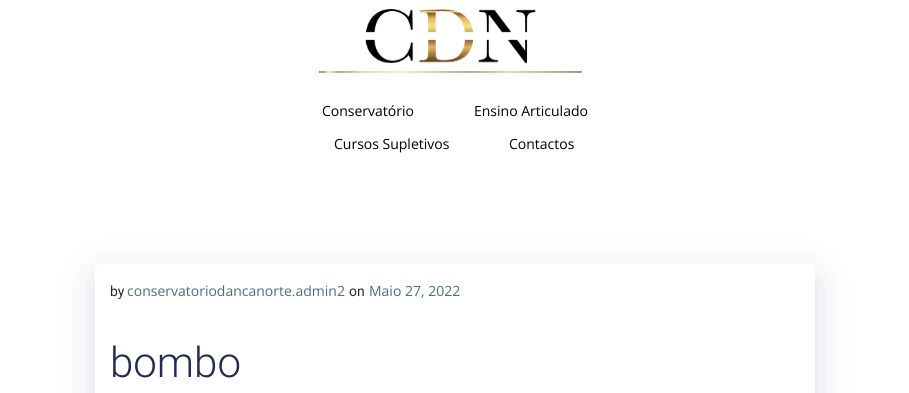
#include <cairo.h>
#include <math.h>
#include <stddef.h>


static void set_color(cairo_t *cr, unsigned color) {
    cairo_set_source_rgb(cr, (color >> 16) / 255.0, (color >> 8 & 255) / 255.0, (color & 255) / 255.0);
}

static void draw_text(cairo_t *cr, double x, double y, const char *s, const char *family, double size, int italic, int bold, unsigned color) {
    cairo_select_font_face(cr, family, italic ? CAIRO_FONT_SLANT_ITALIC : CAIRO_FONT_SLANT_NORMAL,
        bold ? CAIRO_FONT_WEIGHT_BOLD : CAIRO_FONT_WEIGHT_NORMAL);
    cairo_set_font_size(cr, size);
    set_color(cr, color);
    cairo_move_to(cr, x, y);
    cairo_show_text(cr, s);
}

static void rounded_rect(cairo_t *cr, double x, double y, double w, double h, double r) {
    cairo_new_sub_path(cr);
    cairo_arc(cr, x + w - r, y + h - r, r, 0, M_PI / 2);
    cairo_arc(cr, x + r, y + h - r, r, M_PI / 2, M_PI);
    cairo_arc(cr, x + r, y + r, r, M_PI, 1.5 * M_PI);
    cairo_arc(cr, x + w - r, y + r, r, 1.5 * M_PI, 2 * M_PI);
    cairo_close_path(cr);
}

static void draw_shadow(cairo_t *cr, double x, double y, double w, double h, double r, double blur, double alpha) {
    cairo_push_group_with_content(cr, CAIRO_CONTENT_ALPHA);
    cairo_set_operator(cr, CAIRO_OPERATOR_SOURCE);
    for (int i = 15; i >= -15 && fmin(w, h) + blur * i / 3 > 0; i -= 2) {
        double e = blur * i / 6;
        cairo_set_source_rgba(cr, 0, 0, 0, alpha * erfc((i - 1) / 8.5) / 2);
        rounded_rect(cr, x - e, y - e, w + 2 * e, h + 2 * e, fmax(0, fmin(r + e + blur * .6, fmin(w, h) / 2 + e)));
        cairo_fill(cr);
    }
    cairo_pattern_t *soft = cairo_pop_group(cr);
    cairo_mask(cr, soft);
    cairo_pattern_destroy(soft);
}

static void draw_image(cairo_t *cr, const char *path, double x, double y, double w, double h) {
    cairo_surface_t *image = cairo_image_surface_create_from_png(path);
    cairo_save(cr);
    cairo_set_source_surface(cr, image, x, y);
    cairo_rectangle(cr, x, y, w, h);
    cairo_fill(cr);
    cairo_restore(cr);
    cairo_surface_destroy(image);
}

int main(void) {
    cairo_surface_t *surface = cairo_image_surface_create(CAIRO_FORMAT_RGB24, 909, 393);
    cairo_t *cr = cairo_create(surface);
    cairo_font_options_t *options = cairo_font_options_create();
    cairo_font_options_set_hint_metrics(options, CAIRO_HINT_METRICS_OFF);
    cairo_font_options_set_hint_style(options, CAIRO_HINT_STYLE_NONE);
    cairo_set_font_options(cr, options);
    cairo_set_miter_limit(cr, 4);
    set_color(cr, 0xFFFFFF);
    cairo_paint(cr);
    draw_image(cr, "assets/img1.png", 319, 9, 263, 64);
    draw_text(cr, 322, 116, "Conservatório", "Open Sans", 14, 0, 0, 0x000000);
    draw_text(cr, 474, 116, "Ensino Articulado", "Open Sans", 14, 0, 0, 0x000000);
    draw_text(cr, 334, 149, "Cursos Supletivos", "Open Sans", 14, 0, 0, 0x000000);
    draw_text(cr, 509, 149, "Contactos", "Open Sans", 14, 0, 0, 0x000000);
    set_color(cr, 0x01334A);
    draw_shadow(cr, 95, 274, 720, 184, 5, 20, 0.15);
    set_color(cr, 0xFFFFFF);
    rounded_rect(cr, 95, 264, 720, 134, 5);
    cairo_fill(cr);
    draw_text(cr, 110, 296, "by", "Roboto", 14, 0, 0, 0x25292A);
    draw_text(cr, 127, 296, "conservatoriodancanorte.admin2", "Open Sans", 14, 0, 0, 0x46707F);
    draw_text(cr, 349, 296, "on", "Roboto", 14, 0, 0, 0x25292A);
    draw_text(cr, 369, 296, "Maio 27, 2022", "Open Sans", 14, 0, 0, 0x46707F);
    draw_text(cr, 110, 377, "bombo", "Roboto Light", 42, 0, 0, 0x202A54);
    cairo_surface_write_to_png(surface, "output.png");
    cairo_font_options_destroy(options);
    cairo_destroy(cr);
    cairo_surface_destroy(surface);
    return 0;
}
